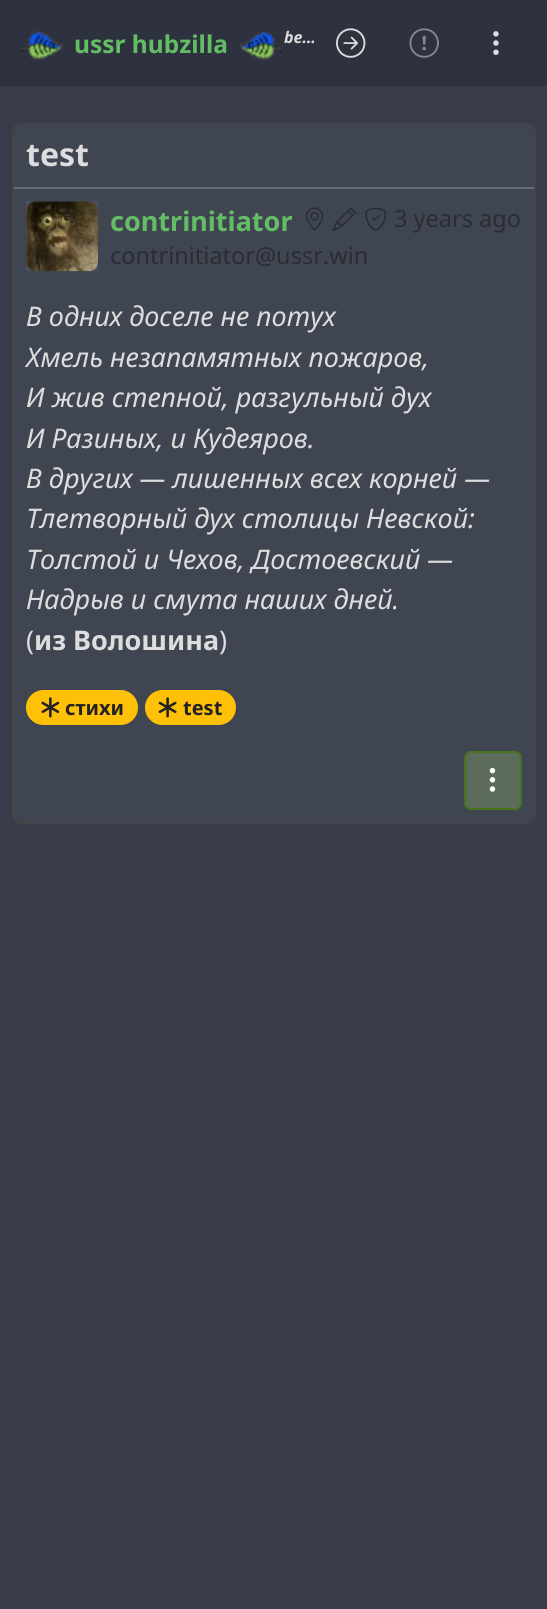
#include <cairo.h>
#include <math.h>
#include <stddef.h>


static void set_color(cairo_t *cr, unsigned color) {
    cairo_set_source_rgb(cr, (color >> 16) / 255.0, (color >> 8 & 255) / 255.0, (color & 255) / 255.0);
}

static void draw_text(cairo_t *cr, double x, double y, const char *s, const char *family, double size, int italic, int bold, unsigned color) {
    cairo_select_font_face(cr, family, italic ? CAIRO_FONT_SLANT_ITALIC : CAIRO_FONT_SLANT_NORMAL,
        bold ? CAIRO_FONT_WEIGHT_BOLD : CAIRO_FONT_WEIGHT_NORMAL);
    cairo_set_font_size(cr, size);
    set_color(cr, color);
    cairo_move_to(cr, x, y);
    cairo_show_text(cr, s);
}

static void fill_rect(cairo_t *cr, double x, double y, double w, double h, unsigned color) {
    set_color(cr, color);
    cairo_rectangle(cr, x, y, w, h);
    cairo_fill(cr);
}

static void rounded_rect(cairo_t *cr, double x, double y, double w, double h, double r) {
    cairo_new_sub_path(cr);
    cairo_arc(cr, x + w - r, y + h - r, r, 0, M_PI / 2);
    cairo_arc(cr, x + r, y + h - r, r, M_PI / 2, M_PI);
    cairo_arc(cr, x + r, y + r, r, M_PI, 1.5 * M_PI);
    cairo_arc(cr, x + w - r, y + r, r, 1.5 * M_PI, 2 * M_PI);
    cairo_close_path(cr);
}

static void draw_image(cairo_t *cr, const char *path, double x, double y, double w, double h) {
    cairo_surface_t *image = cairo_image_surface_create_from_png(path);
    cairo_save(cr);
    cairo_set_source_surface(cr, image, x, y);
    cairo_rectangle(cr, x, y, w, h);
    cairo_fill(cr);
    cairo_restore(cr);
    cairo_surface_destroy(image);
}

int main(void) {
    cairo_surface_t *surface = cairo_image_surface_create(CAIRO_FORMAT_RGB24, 547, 1609);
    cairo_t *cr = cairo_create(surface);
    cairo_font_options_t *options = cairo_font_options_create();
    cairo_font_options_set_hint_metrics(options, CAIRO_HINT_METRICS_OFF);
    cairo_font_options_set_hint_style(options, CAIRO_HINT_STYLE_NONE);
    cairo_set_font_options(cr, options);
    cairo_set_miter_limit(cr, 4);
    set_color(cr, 0x383C4A);
    cairo_paint(cr);
    fill_rect(cr, 0, 0, 547, 86, 0x2E323E);
    draw_image(cr, "assets/img1.png", 20, 31, 43, 29);
    draw_text(cr, 74, 53, "ussr hubzilla", "Noto Sans", 24.5, 0, 1, 0x63BD65);
    draw_image(cr, "assets/img2.png", 239, 31, 44, 29);
    draw_text(cr, 284, 43, "be…", "Noto Sans", 16, 1, 1, 0xDDDDDD);
    draw_image(cr, "assets/img3.png", 336, 28, 30, 30);
    draw_image(cr, "assets/img4.png", 409, 28, 30, 30);
    draw_image(cr, "assets/img5.png", 493, 31, 6, 24);
    rounded_rect(cr, 13, 124, 522, 699, 8);
    set_color(cr, 0x444444);
    cairo_stroke(cr);
    set_color(cr, 0x404552);
    rounded_rect(cr, 14, 124, 520, 699, 9);
    cairo_fill(cr);
    draw_text(cr, 26, 166, "test", "Noto Sans", 32, 0, 1, 0xDDDDDD);
    fill_rect(cr, 14, 187, 520, 2, 0x676B75);
    fill_rect(cr, 26, 201, 72, 70, 0x4B5162);
    draw_image(cr, "assets/img6.png", 26, 201, 72, 71);
    draw_text(cr, 110, 231, "contrinitiator", "Noto Sans", 27, 0, 1, 0x63BD65);
    draw_text(cr, 110, 264, "contrinitiator@ussr.win", "Noto Sans", 23.5, 0, 0, 0x292D33);
    draw_image(cr, "assets/img7.png", 305, 207, 19, 24);
    draw_image(cr, "assets/img8.png", 332, 207, 24, 24);
    draw_image(cr, "assets/img9.png", 365, 207, 21, 24);
    draw_text(cr, 394, 227, "3 years ago", "Noto Sans", 23.5, 0, 0, 0x292D33);
    draw_text(cr, 26, 326, "В одних доселе не потух", "Noto Sans", 27, 1, 0, 0xDDDDDD);
    draw_text(cr, 26, 367, "Хмель незапамятных пожаров,", "Noto Sans", 27, 1, 0, 0xDDDDDD);
    draw_text(cr, 26, 407, "И жив степной, разгульный дух", "Noto Sans", 27, 1, 0, 0xDDDDDD);
    draw_text(cr, 26, 448, "И Разиных, и Кудеяров.", "Noto Sans", 27, 1, 0, 0xDDDDDD);
    draw_text(cr, 26, 488, "В других — лишенных всех корней —", "Noto Sans", 27, 1, 0, 0xDDDDDD);
    draw_text(cr, 26, 528, "Тлетворный дух столицы Невской:", "Noto Sans", 27, 1, 0, 0xDDDDDD);
    draw_text(cr, 26, 569, "Толстой и Чехов, Достоевский —", "Noto Sans", 27, 1, 0, 0xDDDDDD);
    draw_text(cr, 26, 609, "Надрыв и смута наших дней.", "Noto Sans", 27, 1, 0, 0xDDDDDD);
    draw_text(cr, 26, 650, "(", "Noto Sans", 27, 0, 0, 0xDDDDDD);
    draw_text(cr, 34, 650, "из Волошина", "Noto Sans", 27, 0, 1, 0xDDDDDD);
    draw_text(cr, 219, 650, ")", "Noto Sans", 27, 0, 0, 0xDDDDDD);
    set_color(cr, 0xFFC107);
    rounded_rect(cr, 26, 690, 112, 35, 17.5);
    cairo_fill(cr);
    draw_image(cr, "assets/img10.png", 41, 697, 19, 21);
    draw_text(cr, 65, 715, "стихи", "Noto Sans", 20, 0, 1, 0x222222);
    set_color(cr, 0xFFC107);
    rounded_rect(cr, 145, 690, 91, 35, 17.5);
    cairo_fill(cr);
    draw_image(cr, "assets/img11.png", 158, 697, 19, 21);
    draw_text(cr, 183, 715, "test", "Noto Sans", 20, 0, 1, 0x222222);
    set_color(cr, 0x5C6B5B);
    rounded_rect(cr, 465, 752, 56, 57, 6);
    cairo_fill_preserve(cr);
    set_color(cr, 0x47741C);
    cairo_stroke(cr);
    draw_image(cr, "assets/img12.png", 489, 767, 7, 25);
    cairo_surface_write_to_png(surface, "output.png");
    cairo_font_options_destroy(options);
    cairo_destroy(cr);
    cairo_surface_destroy(surface);
    return 0;
}
